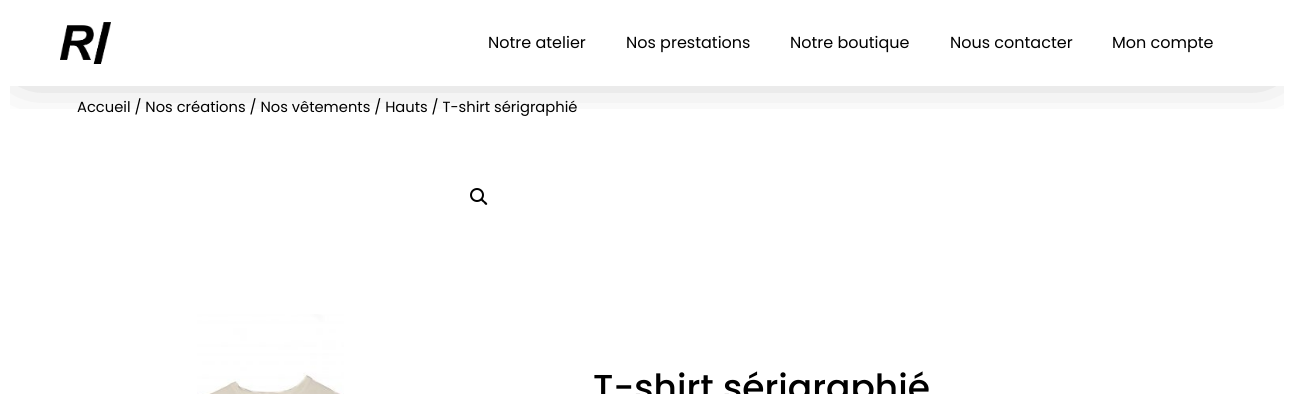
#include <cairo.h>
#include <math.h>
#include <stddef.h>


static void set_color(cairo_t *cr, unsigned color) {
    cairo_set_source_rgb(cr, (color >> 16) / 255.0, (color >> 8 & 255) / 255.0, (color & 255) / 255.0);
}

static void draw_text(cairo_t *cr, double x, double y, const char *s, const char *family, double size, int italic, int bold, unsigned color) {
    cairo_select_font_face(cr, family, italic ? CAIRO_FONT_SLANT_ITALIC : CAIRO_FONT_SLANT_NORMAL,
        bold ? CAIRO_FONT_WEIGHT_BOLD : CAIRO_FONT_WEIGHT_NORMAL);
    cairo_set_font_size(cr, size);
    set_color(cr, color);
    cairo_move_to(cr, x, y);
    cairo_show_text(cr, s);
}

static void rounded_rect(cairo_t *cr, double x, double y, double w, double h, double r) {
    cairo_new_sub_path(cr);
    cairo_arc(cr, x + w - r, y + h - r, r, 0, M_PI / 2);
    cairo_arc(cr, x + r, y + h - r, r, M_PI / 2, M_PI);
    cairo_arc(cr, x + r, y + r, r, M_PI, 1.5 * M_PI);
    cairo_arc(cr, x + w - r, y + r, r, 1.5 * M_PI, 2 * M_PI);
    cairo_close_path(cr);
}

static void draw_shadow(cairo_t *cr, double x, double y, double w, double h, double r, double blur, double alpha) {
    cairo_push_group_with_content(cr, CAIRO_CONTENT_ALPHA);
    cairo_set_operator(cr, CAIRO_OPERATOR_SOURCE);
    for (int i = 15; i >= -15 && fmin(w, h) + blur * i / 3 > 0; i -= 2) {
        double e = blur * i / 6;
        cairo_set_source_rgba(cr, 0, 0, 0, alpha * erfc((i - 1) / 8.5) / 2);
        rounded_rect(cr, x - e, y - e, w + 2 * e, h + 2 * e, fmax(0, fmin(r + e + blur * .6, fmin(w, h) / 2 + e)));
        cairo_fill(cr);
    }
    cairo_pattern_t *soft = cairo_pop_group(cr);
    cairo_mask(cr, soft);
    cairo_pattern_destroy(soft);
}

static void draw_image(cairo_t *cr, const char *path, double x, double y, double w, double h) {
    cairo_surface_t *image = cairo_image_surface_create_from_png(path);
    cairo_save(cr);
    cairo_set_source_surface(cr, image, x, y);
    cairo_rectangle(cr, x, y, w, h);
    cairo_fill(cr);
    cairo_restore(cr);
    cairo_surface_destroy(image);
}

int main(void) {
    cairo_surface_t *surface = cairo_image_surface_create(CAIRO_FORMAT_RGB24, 1294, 394);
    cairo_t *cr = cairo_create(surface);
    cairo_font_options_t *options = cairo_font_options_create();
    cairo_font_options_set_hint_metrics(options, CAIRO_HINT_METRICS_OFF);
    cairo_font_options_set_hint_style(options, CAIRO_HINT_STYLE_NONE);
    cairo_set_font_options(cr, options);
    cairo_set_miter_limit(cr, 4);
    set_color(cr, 0xFFFFFF);
    cairo_paint(cr);
    cairo_save(cr);
    cairo_rectangle(cr, 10, 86, 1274, 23);
    cairo_clip(cr);
    set_color(cr, 0x000000);
    draw_shadow(cr, 28, 28, 1238, 30, 0, 30, 0.5);
    cairo_restore(cr);
    draw_image(cr, "assets/img1.png", 60, 22, 51, 42);
    draw_text(cr, 488, 48, "Notre atelier", "Poppins", 16, 0, 0, 0x000000);
    draw_text(cr, 626, 48, "Nos prestations", "Poppins", 16, 0, 0, 0x000000);
    draw_text(cr, 790, 48, "Notre boutique", "Poppins", 16, 0, 0, 0x000000);
    draw_text(cr, 950, 48, "Nous contacter", "Poppins", 16, 0, 0, 0x000000);
    draw_text(cr, 1112, 48, "Mon compte", "Poppins", 16, 0, 0, 0x000000);
    draw_text(cr, 77, 112, "Accueil / Nos créations / Nos vêtements / Hauts / T-shirt sérigraphié", "Poppins", 14.7, 0, 0, 0x000000);
    cairo_new_path(cr);
    cairo_arc(cr, 477, 195, 6, 0, 2 * M_PI);
    cairo_stroke(cr);
    cairo_new_path(cr);
    cairo_move_to(cr, 481, 199);
    cairo_curve_to(cr, 482.5, 198, 484, 200.5, 484.5, 201);
    cairo_curve_to(cr, 485.5, 201.5, 488, 203.5, 487, 204.5);
    cairo_curve_to(cr, 485.5, 206, 484, 203, 483.5, 202.5);
    cairo_curve_to(cr, 482.5, 202, 480, 200, 481, 199);
    cairo_close_path(cr);
    cairo_fill(cr);
    draw_image(cr, "assets/img2.png", 197, 314, 147, 80);
    draw_text(cr, 593, 400, "T-shirt sérigraphié", "Poppins Medium", 36, 0, 0, 0x000000);
    cairo_surface_write_to_png(surface, "output.png");
    cairo_font_options_destroy(options);
    cairo_destroy(cr);
    cairo_surface_destroy(surface);
    return 0;
}
